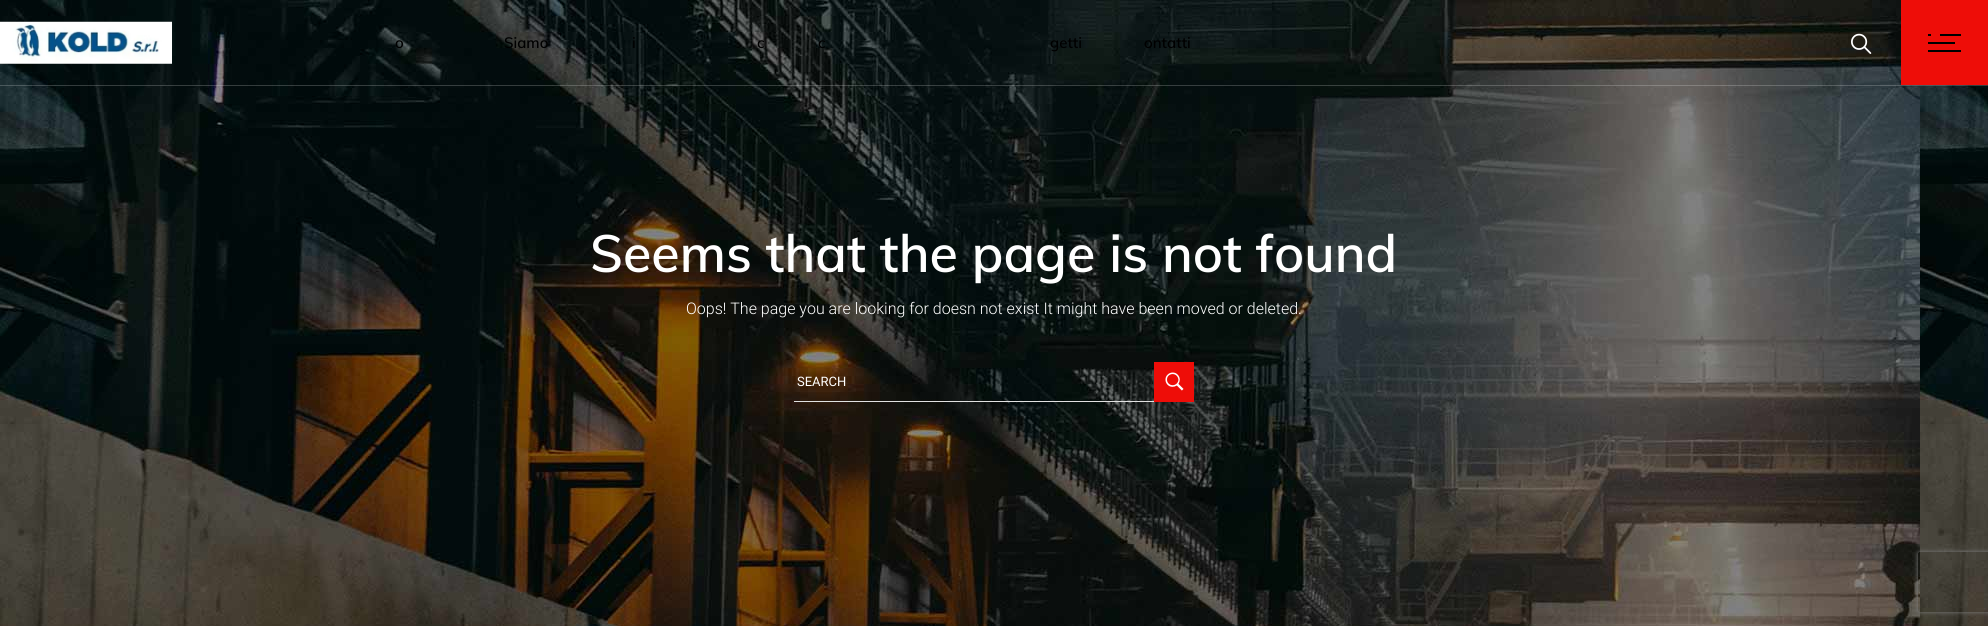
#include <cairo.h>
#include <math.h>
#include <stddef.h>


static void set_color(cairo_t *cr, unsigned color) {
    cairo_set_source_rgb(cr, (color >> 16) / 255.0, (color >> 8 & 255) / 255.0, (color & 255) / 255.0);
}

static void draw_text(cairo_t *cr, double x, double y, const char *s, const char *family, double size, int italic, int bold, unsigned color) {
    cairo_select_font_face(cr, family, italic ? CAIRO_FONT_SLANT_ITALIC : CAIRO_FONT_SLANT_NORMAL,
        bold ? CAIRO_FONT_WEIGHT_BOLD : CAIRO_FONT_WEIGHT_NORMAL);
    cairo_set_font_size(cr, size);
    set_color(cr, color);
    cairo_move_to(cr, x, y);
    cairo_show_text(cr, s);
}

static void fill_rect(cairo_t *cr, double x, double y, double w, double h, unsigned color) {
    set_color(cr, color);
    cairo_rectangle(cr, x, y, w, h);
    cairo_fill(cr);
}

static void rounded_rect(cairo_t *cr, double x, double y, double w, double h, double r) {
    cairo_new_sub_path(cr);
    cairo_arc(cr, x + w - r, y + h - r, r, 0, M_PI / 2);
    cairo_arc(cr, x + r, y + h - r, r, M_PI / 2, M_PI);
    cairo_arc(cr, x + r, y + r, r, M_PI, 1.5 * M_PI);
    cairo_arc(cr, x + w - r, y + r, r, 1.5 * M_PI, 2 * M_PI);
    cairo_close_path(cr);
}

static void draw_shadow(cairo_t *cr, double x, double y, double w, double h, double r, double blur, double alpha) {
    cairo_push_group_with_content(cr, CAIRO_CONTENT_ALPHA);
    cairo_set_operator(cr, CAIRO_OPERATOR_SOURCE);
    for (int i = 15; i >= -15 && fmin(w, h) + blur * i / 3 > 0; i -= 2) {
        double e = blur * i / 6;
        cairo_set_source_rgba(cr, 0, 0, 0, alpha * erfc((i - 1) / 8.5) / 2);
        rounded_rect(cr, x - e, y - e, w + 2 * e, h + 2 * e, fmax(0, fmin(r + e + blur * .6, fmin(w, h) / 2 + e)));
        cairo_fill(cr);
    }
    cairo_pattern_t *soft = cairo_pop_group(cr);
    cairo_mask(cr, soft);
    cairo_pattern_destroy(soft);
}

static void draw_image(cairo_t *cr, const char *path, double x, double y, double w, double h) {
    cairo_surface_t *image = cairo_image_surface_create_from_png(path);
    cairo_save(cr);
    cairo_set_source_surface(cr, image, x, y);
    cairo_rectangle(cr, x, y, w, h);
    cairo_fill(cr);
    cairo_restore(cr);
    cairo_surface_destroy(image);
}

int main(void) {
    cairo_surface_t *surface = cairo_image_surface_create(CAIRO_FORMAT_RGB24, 1988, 626);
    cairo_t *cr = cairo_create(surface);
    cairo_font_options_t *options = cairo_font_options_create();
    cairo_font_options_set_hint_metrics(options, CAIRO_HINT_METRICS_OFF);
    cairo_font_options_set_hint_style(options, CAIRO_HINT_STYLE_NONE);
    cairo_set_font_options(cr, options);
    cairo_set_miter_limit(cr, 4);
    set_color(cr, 0xFFFFFF);
    cairo_paint(cr);
    draw_image(cr, "assets/img3.png", 0, 0, 1988, 626);
    cairo_set_source_rgba(cr, 1, 1, 1, 0.2);
    cairo_rectangle(cr, 0, 85, 1988, 1);
    cairo_fill(cr);
    draw_image(cr, "assets/img1.png", 0, 21, 172, 43);
    draw_text(cr, 395, 48, "o", "Muli SemiBold", 15, 0, 0, 0x000000);
    draw_text(cr, 504, 48, "Siamo", "Muli SemiBold", 15, 0, 0, 0x000000);
    draw_text(cr, 632, 48, "i", "Muli SemiBold", 15, 0, 0, 0x000000);
    draw_text(cr, 757, 48, "c", "Muli SemiBold", 15, 0, 0, 0x000000);
    draw_text(cr, 818, 48, "c", "Muli SemiBold", 15, 0, 0, 0x000000);
    draw_text(cr, 1050, 48, "getti", "Muli SemiBold", 15, 0, 0, 0x000000);
    draw_text(cr, 1144, 48, "ontatti", "Muli SemiBold", 15, 0, 0, 0x000000);
    draw_image(cr, "assets/img2.png", 1851, 33, 21, 21);
    fill_rect(cr, 1901, 0, 87, 85, 0xEE0D08);
    fill_rect(cr, 1928, 34, 3, 2, 0x000000);
    fill_rect(cr, 1940, 34, 21, 2, 0x000000);
    fill_rect(cr, 1928, 42, 27, 2, 0x000000);
    fill_rect(cr, 1928, 50, 33, 2, 0x000000);
    draw_text(cr, 590, 272, "Seems that the page is not found", "Muli SemiBold", 52, 0, 0, 0xFFFFFF);
    draw_text(cr, 686, 314, "Oops! The page you are looking for doesn not exist It might have been moved or deleted.", "Roboto Light", 16, 0, 0, 0xFFFFFF);
    draw_text(cr, 797, 386, "SEARCH", "Roboto", 13, 0, 0, 0xFFFFFF);
    fill_rect(cr, 1154, 362, 40, 40, 0xEE0D08);
    draw_image(cr, "assets/img4.png", 1165, 372, 19, 19);
    fill_rect(cr, 794, 401, 360, 1, 0xE1E1E1);
    cairo_save(cr);
    cairo_set_fill_rule(cr, CAIRO_FILL_RULE_EVEN_ODD);
    cairo_new_path(cr);
    cairo_move_to(cr, 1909, 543);
    cairo_line_to(cr, 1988, 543);
    cairo_line_to(cr, 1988, 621);
    cairo_line_to(cr, 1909, 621);
    cairo_close_path(cr);
    cairo_move_to(cr, 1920, 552);
    cairo_line_to(cr, 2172, 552);
    cairo_curve_to(cr, 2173, 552, 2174, 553, 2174, 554);
    cairo_line_to(cr, 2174, 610);
    cairo_curve_to(cr, 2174, 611, 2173, 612, 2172, 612);
    cairo_line_to(cr, 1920, 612);
    cairo_curve_to(cr, 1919, 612, 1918, 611, 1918, 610);
    cairo_line_to(cr, 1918, 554);
    cairo_curve_to(cr, 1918, 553, 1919, 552, 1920, 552);
    cairo_close_path(cr);
    cairo_clip(cr);
    set_color(cr, 0x808080);
    draw_shadow(cr, 1918, 552, 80, 60, 2, 2.5, 1);
    cairo_restore(cr);
    cairo_surface_write_to_png(surface, "output.png");
    cairo_font_options_destroy(options);
    cairo_destroy(cr);
    cairo_surface_destroy(surface);
    return 0;
}
